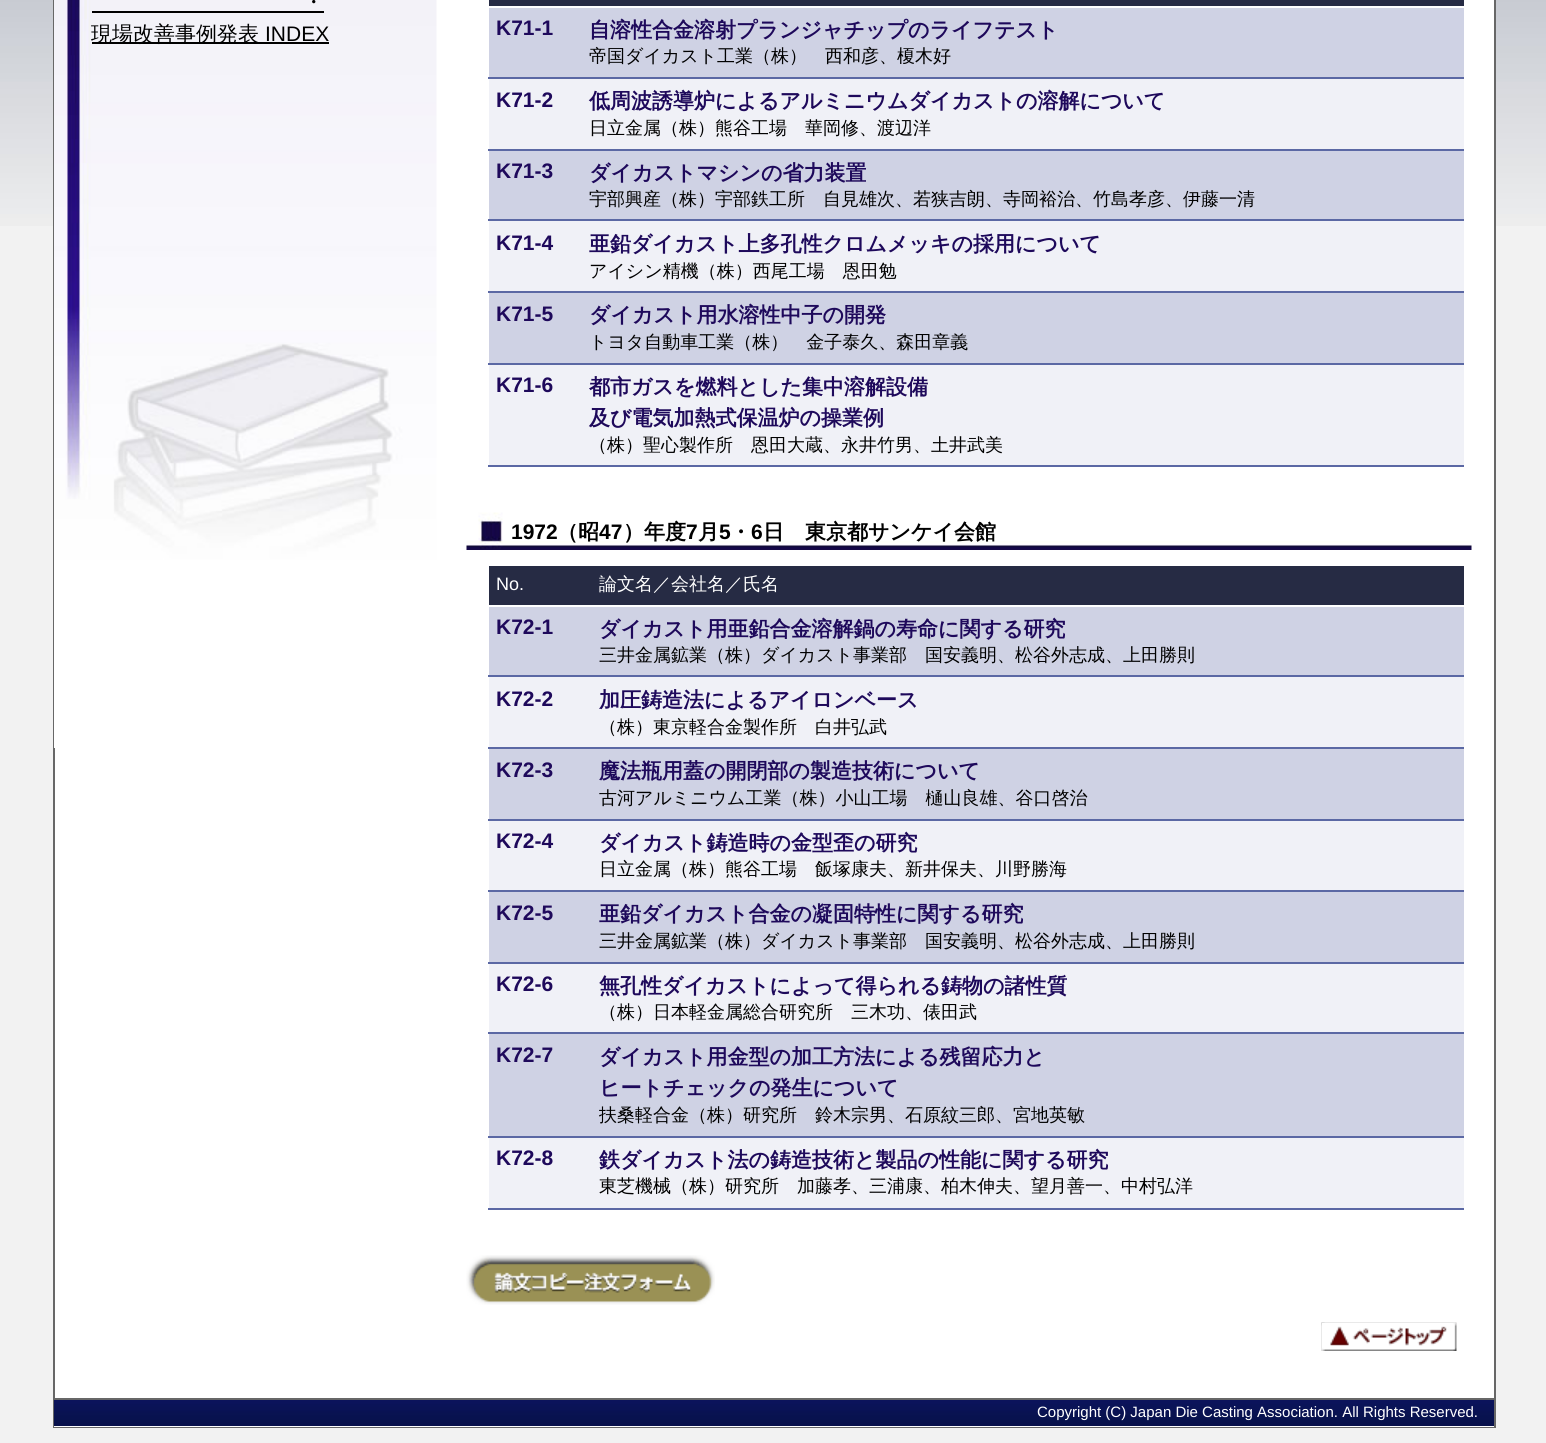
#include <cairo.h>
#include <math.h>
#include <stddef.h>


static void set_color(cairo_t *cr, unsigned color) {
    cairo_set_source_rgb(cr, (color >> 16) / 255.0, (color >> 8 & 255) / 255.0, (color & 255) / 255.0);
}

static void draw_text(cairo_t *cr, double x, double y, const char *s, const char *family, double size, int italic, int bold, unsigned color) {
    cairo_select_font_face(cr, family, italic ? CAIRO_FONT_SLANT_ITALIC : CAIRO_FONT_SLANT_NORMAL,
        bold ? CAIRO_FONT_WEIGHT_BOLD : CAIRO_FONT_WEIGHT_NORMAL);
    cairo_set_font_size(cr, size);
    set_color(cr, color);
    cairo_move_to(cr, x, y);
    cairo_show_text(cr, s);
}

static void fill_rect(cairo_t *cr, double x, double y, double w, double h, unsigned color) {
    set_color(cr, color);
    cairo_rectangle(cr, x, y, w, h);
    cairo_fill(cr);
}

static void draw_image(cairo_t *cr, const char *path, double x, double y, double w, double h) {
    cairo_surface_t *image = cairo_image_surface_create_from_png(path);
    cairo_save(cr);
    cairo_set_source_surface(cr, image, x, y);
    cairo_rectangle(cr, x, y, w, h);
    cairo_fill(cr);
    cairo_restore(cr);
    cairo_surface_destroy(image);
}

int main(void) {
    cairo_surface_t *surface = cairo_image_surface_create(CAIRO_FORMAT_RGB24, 1546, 1443);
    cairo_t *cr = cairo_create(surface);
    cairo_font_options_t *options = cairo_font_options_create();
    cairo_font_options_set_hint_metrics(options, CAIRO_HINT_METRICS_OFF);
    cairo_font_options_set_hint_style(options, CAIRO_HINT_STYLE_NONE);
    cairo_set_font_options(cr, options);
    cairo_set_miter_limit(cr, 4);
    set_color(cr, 0xF2F2F2);
    cairo_paint(cr);
    draw_image(cr, "assets/img1.png", 0, 0, 1546, 226);
    fill_rect(cr, 55, 0, 1439, 1398, 0xFFFFFF);
    cairo_rectangle(cr, 54, -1, 1441, 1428);
    set_color(cr, 0x676767);
    cairo_stroke(cr);
    draw_image(cr, "assets/img2.png", 54, 0, 383, 748);
    draw_text(cr, 303, 9, "・", "WenQuanYi Zen Hei Medium", 21, 0, 0, 0x000000);
    fill_rect(cr, 92, 11, 232, 2, 0x000000);
    fill_rect(cr, 92, 42, 237, 2, 0x000000);
    draw_text(cr, 91, 41, "現場改善事例発表", "WenQuanYi Zen Hei Medium", 21, 0, 0, 0x000000);
    draw_text(cr, 265, 41, "INDEX", "Liberation Sans", 21, 0, 0, 0x000000);
    fill_rect(cr, 489, 0, 975, 6, 0x262B44);
    fill_rect(cr, 489, 8, 975, 69, 0xCFD2E4);
    draw_text(cr, 496, 35, "K71-1", "Liberation Sans", 21, 0, 1, 0x1E095B);
    fill_rect(cr, 488, 77, 976, 2, 0x5B68A4);
    draw_text(cr, 589, 37, "自溶性合金溶射プランジャチップのライフテスト", "WenQuanYi Zen Hei", 21, 0, 1, 0x1E095B);
    draw_text(cr, 589, 62, "帝国ダイカスト工業（株）　西和彦、榎木好", "WenQuanYi Zen Hei Medium", 18, 0, 0, 0x000000);
    fill_rect(cr, 489, 79, 975, 70, 0xF0F1F7);
    draw_text(cr, 496, 107, "K71-2", "Liberation Sans", 21, 0, 1, 0x1E095B);
    fill_rect(cr, 488, 149, 976, 2, 0x5B68A4);
    draw_text(cr, 589, 108, "低周波誘導炉によるアルミニウムダイカストの溶解について", "WenQuanYi Zen Hei", 21, 0, 1, 0x1E095B);
    draw_text(cr, 589, 134, "日立金属（株）熊谷工場　華岡修、渡辺洋", "WenQuanYi Zen Hei Medium", 18, 0, 0, 0x000000);
    fill_rect(cr, 489, 151, 975, 68, 0xCFD2E4);
    draw_text(cr, 496, 178, "K71-3", "Liberation Sans", 21, 0, 1, 0x1E095B);
    fill_rect(cr, 488, 219, 976, 2, 0x5B68A4);
    draw_text(cr, 589, 180, "ダイカストマシンの省力装置", "WenQuanYi Zen Hei", 21, 0, 1, 0x1E095B);
    draw_text(cr, 589, 205, "宇部興産（株）宇部鉄工所　自見雄次、若狭吉朗、寺岡裕治、竹島孝彦、伊藤一清", "WenQuanYi Zen Hei Medium", 18, 0, 0, 0x000000);
    fill_rect(cr, 489, 221, 975, 70, 0xF0F1F7);
    draw_text(cr, 496, 250, "K71-4", "Liberation Sans", 21, 0, 1, 0x1E095B);
    fill_rect(cr, 488, 291, 976, 2, 0x5B68A4);
    draw_text(cr, 589, 251, "亜鉛ダイカスト上多孔性クロムメッキの採用について", "WenQuanYi Zen Hei", 21, 0, 1, 0x1E095B);
    draw_text(cr, 589, 277, "アイシン精機（株）西尾工場　恩田勉", "WenQuanYi Zen Hei Medium", 18, 0, 0, 0x000000);
    fill_rect(cr, 489, 293, 975, 70, 0xCFD2E4);
    draw_text(cr, 496, 321, "K71-5", "Liberation Sans", 21, 0, 1, 0x1E095B);
    fill_rect(cr, 488, 363, 976, 2, 0x5B68A4);
    draw_text(cr, 589, 322, "ダイカスト用水溶性中子の開発", "WenQuanYi Zen Hei", 21, 0, 1, 0x1E095B);
    draw_text(cr, 589, 348, "トヨタ自動車工業（株）　金子泰久、森田章義", "WenQuanYi Zen Hei Medium", 18, 0, 0, 0x000000);
    fill_rect(cr, 489, 365, 975, 100, 0xF0F1F7);
    draw_text(cr, 496, 392, "K71-6", "Liberation Sans", 21, 0, 1, 0x1E095B);
    fill_rect(cr, 488, 465, 976, 2, 0x5B68A4);
    draw_text(cr, 589, 394, "都市ガスを燃料とした集中溶解設備", "WenQuanYi Zen Hei", 21, 0, 1, 0x1E095B);
    draw_text(cr, 589, 425, "及び電気加熱式保温炉の操業例", "WenQuanYi Zen Hei", 21, 0, 1, 0x1E095B);
    draw_text(cr, 589, 451, "（株）聖心製作所　恩田大蔵、永井竹男、土井武美", "WenQuanYi Zen Hei Medium", 18, 0, 0, 0x000000);
    draw_image(cr, "assets/img3.png", 466, 512, 1006, 38);
    draw_text(cr, 511, 539, "1972", "Liberation Sans", 21, 0, 1, 0x000000);
    draw_text(cr, 557, 539, "（昭", "WenQuanYi Zen Hei", 21, 0, 1, 0x000000);
    draw_text(cr, 599, 539, "47", "Liberation Sans", 21, 0, 1, 0x000000);
    draw_text(cr, 623, 539, "）年度", "WenQuanYi Zen Hei", 21, 0, 1, 0x000000);
    draw_text(cr, 686, 539, "7", "Liberation Sans", 21, 0, 1, 0x000000);
    draw_text(cr, 698, 539, "月", "WenQuanYi Zen Hei", 21, 0, 1, 0x000000);
    draw_text(cr, 719, 539, "5", "Liberation Sans", 21, 0, 1, 0x000000);
    draw_text(cr, 730, 539, "・", "WenQuanYi Zen Hei", 21, 0, 1, 0x000000);
    draw_text(cr, 751, 539, "6", "Liberation Sans", 21, 0, 1, 0x000000);
    draw_text(cr, 763, 539, "日　東京都サンケイ会館", "WenQuanYi Zen Hei", 21, 0, 1, 0x000000);
    fill_rect(cr, 489, 566, 975, 39, 0x262B44);
    draw_text(cr, 496, 590, "No.", "Liberation Sans", 18, 0, 0, 0xFFFFFF);
    draw_text(cr, 599, 590, "論文名／会社名／氏名", "WenQuanYi Zen Hei Medium", 18, 0, 0, 0xFFFFFF);
    fill_rect(cr, 489, 607, 975, 68, 0xCFD2E4);
    draw_text(cr, 496, 634, "K72-1", "Liberation Sans", 21, 0, 1, 0x1E095B);
    fill_rect(cr, 488, 675, 976, 2, 0x5B68A4);
    draw_text(cr, 599, 636, "ダイカスト用亜鉛合金溶解鍋の寿命に関する研究", "WenQuanYi Zen Hei", 21, 0, 1, 0x1E095B);
    draw_text(cr, 599, 661, "三井金属鉱業（株）ダイカスト事業部　国安義明、松谷外志成、上田勝則", "WenQuanYi Zen Hei Medium", 18, 0, 0, 0x000000);
    fill_rect(cr, 489, 677, 975, 70, 0xF0F1F7);
    draw_text(cr, 496, 706, "K72-2", "Liberation Sans", 21, 0, 1, 0x1E095B);
    fill_rect(cr, 488, 747, 976, 2, 0x5B68A4);
    draw_text(cr, 599, 707, "加圧鋳造法によるアイロンベース", "WenQuanYi Zen Hei", 21, 0, 1, 0x1E095B);
    draw_text(cr, 599, 733, "（株）東京軽合金製作所　白井弘武", "WenQuanYi Zen Hei Medium", 18, 0, 0, 0x000000);
    fill_rect(cr, 489, 749, 975, 70, 0xCFD2E4);
    draw_text(cr, 496, 777, "K72-3", "Liberation Sans", 21, 0, 1, 0x1E095B);
    fill_rect(cr, 488, 819, 976, 2, 0x5B68A4);
    draw_text(cr, 599, 778, "魔法瓶用蓋の開閉部の製造技術について", "WenQuanYi Zen Hei", 21, 0, 1, 0x1E095B);
    draw_text(cr, 599, 804, "古河アルミニウム工業（株）小山工場　樋山良雄、谷口啓治", "WenQuanYi Zen Hei Medium", 18, 0, 0, 0x000000);
    fill_rect(cr, 489, 821, 975, 69, 0xF0F1F7);
    draw_text(cr, 496, 848, "K72-4", "Liberation Sans", 21, 0, 1, 0x1E095B);
    fill_rect(cr, 488, 890, 976, 2, 0x5B68A4);
    draw_text(cr, 599, 850, "ダイカスト鋳造時の金型歪の研究", "WenQuanYi Zen Hei", 21, 0, 1, 0x1E095B);
    draw_text(cr, 599, 875, "日立金属（株）熊谷工場　飯塚康夫、新井保夫、川野勝海", "WenQuanYi Zen Hei Medium", 18, 0, 0, 0x000000);
    fill_rect(cr, 489, 892, 975, 70, 0xCFD2E4);
    draw_text(cr, 496, 920, "K72-5", "Liberation Sans", 21, 0, 1, 0x1E095B);
    fill_rect(cr, 488, 962, 976, 2, 0x5B68A4);
    draw_text(cr, 599, 921, "亜鉛ダイカスト合金の凝固特性に関する研究", "WenQuanYi Zen Hei", 21, 0, 1, 0x1E095B);
    draw_text(cr, 599, 947, "三井金属鉱業（株）ダイカスト事業部　国安義明、松谷外志成、上田勝則", "WenQuanYi Zen Hei Medium", 18, 0, 0, 0x000000);
    fill_rect(cr, 489, 964, 975, 68, 0xF0F1F7);
    draw_text(cr, 496, 991, "K72-6", "Liberation Sans", 21, 0, 1, 0x1E095B);
    fill_rect(cr, 488, 1032, 976, 2, 0x5B68A4);
    draw_text(cr, 599, 993, "無孔性ダイカストによって得られる鋳物の諸性質", "WenQuanYi Zen Hei", 21, 0, 1, 0x1E095B);
    draw_text(cr, 599, 1018, "（株）日本軽金属総合研究所　三木功、俵田武", "WenQuanYi Zen Hei Medium", 18, 0, 0, 0x000000);
    fill_rect(cr, 489, 1034, 975, 102, 0xCFD2E4);
    draw_text(cr, 496, 1062, "K72-7", "Liberation Sans", 21, 0, 1, 0x1E095B);
    fill_rect(cr, 488, 1136, 976, 2, 0x5B68A4);
    draw_text(cr, 599, 1064, "ダイカスト用金型の加工方法による残留応力と", "WenQuanYi Zen Hei", 21, 0, 1, 0x1E095B);
    draw_text(cr, 599, 1095, "ヒートチェックの発生について", "WenQuanYi Zen Hei", 21, 0, 1, 0x1E095B);
    draw_text(cr, 599, 1121, "扶桑軽合金（株）研究所　鈴木宗男、石原紋三郎、宮地英敏", "WenQuanYi Zen Hei Medium", 18, 0, 0, 0x000000);
    fill_rect(cr, 489, 1138, 975, 70, 0xF0F1F7);
    draw_text(cr, 496, 1165, "K72-8", "Liberation Sans", 21, 0, 1, 0x1E095B);
    fill_rect(cr, 488, 1208, 976, 2, 0x5B68A4);
    draw_text(cr, 599, 1167, "鉄ダイカスト法の鋳造技術と製品の性能に関する研究", "WenQuanYi Zen Hei", 21, 0, 1, 0x1E095B);
    draw_text(cr, 599, 1192, "東芝機械（株）研究所　加藤孝、三浦康、柏木伸夫、望月善一、中村弘洋", "WenQuanYi Zen Hei Medium", 18, 0, 0, 0x000000);
    draw_image(cr, "assets/img4.png", 466, 1255, 249, 50);
    draw_image(cr, "assets/img5.png", 1321, 1322, 136, 29);
    draw_image(cr, "assets/img6.png", 1321, 1322, 136, 29);
    fill_rect(cr, 54, 1426, 1440, 1, 0xFFFFFF);
    draw_image(cr, "assets/img7.png", 54, 1400, 1440, 26);
    fill_rect(cr, 54, 1398, 1440, 2, 0x676767);
    draw_text(cr, 1037, 1417, "Copyright (C) Japan Die Casting Association. All Rights Reserved.", "Liberation Sans", 15, 0, 0, 0xFFFFFF);
    cairo_surface_write_to_png(surface, "output.png");
    cairo_font_options_destroy(options);
    cairo_destroy(cr);
    cairo_surface_destroy(surface);
    return 0;
}
